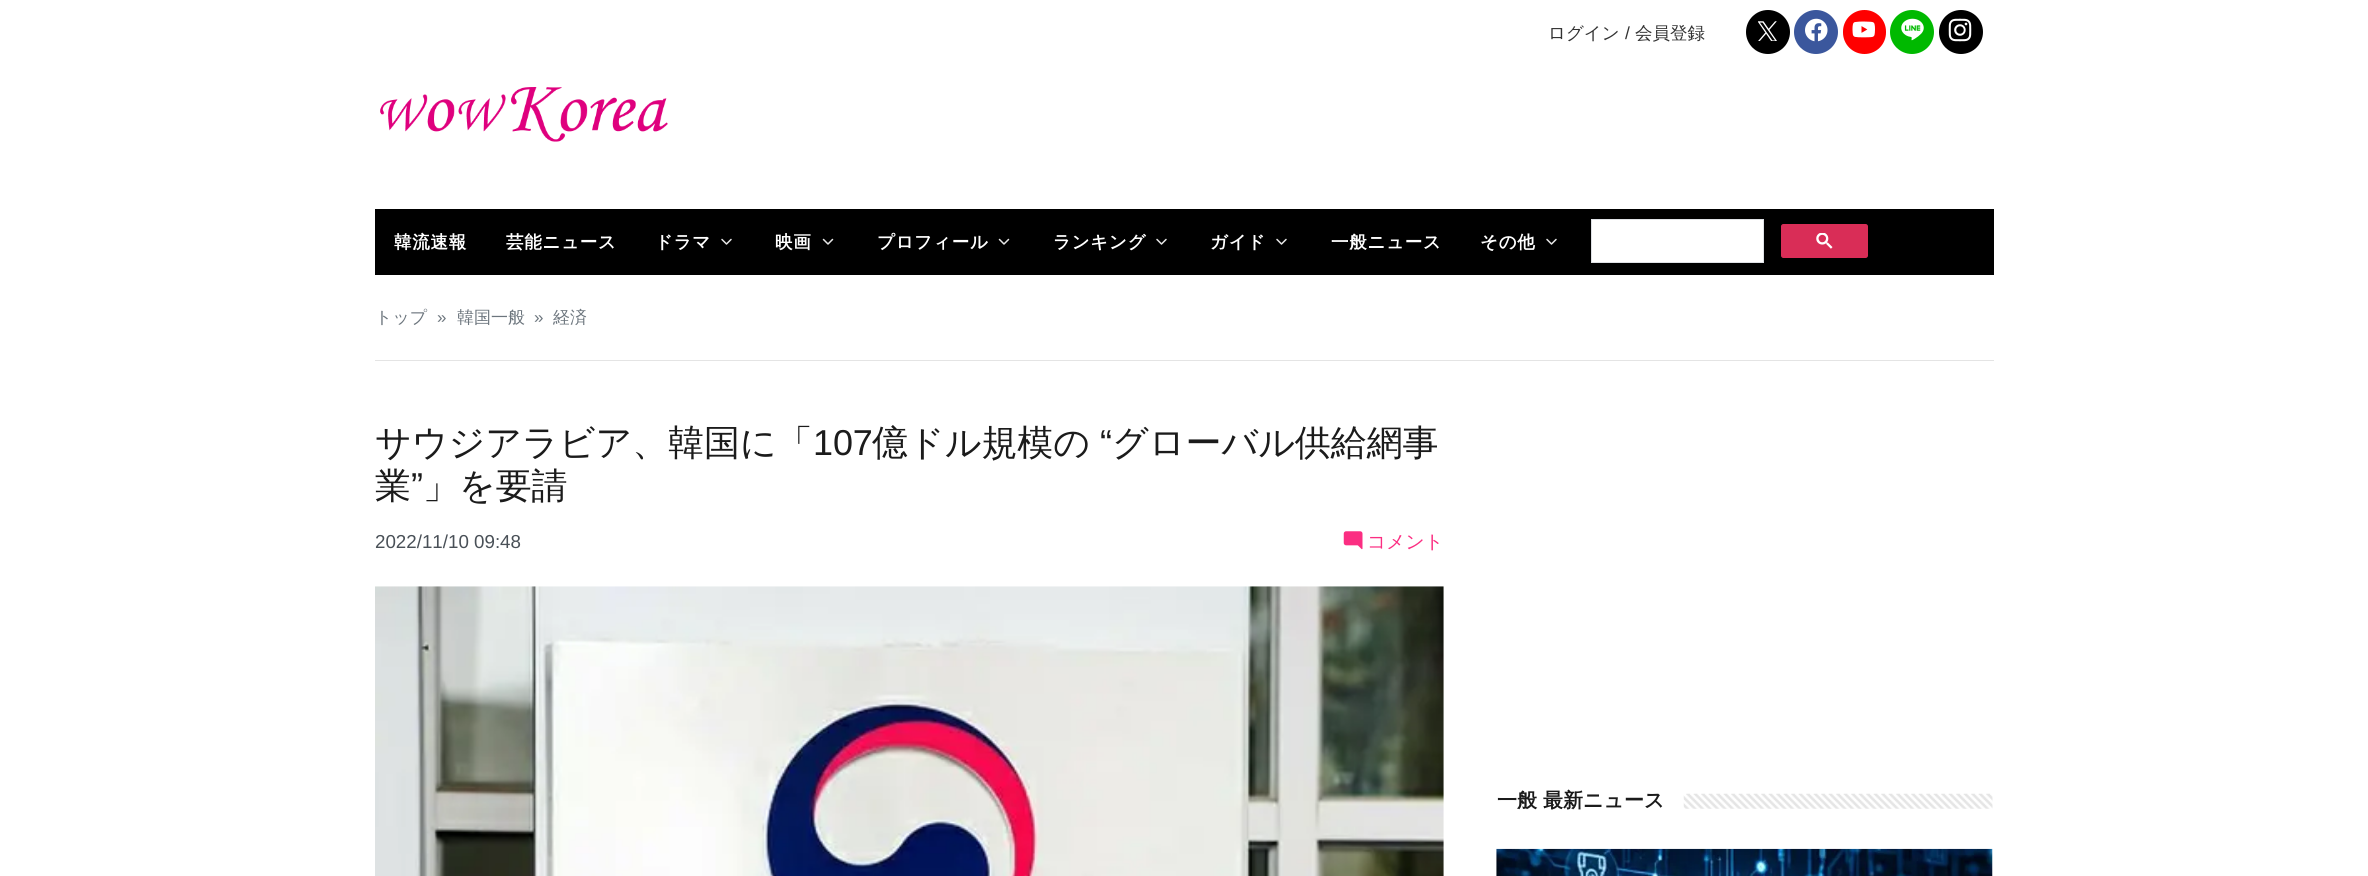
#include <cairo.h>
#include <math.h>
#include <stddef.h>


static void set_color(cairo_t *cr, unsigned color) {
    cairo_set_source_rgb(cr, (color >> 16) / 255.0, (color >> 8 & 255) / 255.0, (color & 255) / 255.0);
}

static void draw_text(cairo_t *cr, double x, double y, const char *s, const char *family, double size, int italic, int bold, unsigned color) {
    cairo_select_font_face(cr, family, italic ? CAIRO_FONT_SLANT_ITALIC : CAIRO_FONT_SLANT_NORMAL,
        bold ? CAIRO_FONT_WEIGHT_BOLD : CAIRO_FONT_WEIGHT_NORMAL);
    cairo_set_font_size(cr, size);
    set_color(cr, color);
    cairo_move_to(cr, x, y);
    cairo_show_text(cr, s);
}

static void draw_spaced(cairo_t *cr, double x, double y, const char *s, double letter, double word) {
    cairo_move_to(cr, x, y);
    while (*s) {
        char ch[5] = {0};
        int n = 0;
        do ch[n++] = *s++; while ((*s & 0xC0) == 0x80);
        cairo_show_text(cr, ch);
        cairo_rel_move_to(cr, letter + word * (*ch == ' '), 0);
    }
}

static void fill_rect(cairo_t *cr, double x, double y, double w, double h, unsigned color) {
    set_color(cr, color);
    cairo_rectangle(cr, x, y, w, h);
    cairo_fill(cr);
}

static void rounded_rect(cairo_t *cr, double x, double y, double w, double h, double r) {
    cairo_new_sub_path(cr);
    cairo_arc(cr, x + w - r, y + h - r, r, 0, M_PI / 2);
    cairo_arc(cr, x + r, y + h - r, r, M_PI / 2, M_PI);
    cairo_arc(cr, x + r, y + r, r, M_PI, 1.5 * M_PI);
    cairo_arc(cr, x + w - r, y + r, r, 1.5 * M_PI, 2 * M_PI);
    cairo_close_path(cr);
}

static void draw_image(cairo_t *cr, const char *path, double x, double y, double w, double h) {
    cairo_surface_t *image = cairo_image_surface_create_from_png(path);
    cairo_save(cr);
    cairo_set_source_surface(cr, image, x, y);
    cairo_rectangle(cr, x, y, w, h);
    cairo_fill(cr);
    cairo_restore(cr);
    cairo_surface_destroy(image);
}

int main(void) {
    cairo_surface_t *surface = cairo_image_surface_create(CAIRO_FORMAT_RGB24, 2368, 876);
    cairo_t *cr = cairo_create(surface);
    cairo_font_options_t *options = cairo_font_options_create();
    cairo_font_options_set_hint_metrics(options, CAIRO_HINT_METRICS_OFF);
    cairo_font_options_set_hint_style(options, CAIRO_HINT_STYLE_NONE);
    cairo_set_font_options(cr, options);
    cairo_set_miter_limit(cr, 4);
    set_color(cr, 0xFFFFFF);
    cairo_paint(cr);
    draw_text(cr, 1548, 39, "ログイン", "WenQuanYi Zen Hei Medium", 17.5, 0, 0, 0x323232);
    draw_text(cr, 1625, 39, "/", "Liberation Sans", 17.5, 0, 0, 0x323232);
    draw_text(cr, 1635, 39, "会員登録", "WenQuanYi Zen Hei Medium", 17.5, 0, 0, 0x323232);
    set_color(cr, 0x000000);
    cairo_new_path(cr);
    cairo_arc(cr, 1768, 32, 22, 0, 2 * M_PI);
    cairo_fill(cr);
    draw_image(cr, "assets/img1.png", 1758, 21, 19, 20);
    set_color(cr, 0x3B579D);
    cairo_arc(cr, 1816, 32, 22, 0, 2 * M_PI);
    cairo_fill(cr);
    draw_image(cr, "assets/img2.png", 1805, 18, 23, 24);
    set_color(cr, 0xFF0000);
    rounded_rect(cr, 1843, 10, 43, 44, 21.5);
    cairo_fill(cr);
    draw_image(cr, "assets/img3.png", 1852, 21, 23, 17);
    set_color(cr, 0x00B900);
    cairo_arc(cr, 1912, 32, 22, 0, 2 * M_PI);
    cairo_fill(cr);
    draw_image(cr, "assets/img4.png", 1901, 18, 23, 23);
    set_color(cr, 0x000000);
    cairo_arc(cr, 1961, 32, 22, 0, 2 * M_PI);
    cairo_fill(cr);
    draw_image(cr, "assets/img5.png", 1948, 18, 24, 24);
    draw_image(cr, "assets/img6.png", 380, 87, 288, 55);
    fill_rect(cr, 375, 209, 1619, 66, 0x000000);
    cairo_select_font_face(cr, "WenQuanYi Zen Hei", CAIRO_FONT_SLANT_NORMAL, CAIRO_FONT_WEIGHT_BOLD);
    set_color(cr, 0xFFFFFF);
    draw_spaced(cr, 394, 248, "韓流速報", 0.75, 0);
    draw_spaced(cr, 506, 248, "芸能ニュース", 0.75, 0);
    draw_spaced(cr, 655, 248, "ドラマ", 0.75, 0);
    cairo_new_path(cr);
    cairo_move_to(cr, 722, 239.5);
    cairo_line_to(cr, 726.5, 244);
    cairo_line_to(cr, 731, 239.5);
    set_color(cr, 0xE6E6E6);
    cairo_set_line_width(cr, 1.5);
    cairo_set_line_cap(cr, CAIRO_LINE_CAP_ROUND);
    cairo_set_line_join(cr, CAIRO_LINE_JOIN_ROUND);
    cairo_stroke(cr);
    set_color(cr, 0xFFFFFF);
    draw_spaced(cr, 775, 248, "映画", 0.75, 0);
    cairo_new_path(cr);
    cairo_move_to(cr, 823.5, 239.5);
    cairo_line_to(cr, 828, 244);
    cairo_line_to(cr, 832.5, 239.5);
    set_color(cr, 0xE6E6E6);
    cairo_stroke(cr);
    set_color(cr, 0xFFFFFF);
    draw_spaced(cr, 877, 248, "プロフィール", 0.75, 0);
    cairo_new_path(cr);
    cairo_move_to(cr, 999.5, 239.5);
    cairo_line_to(cr, 1004, 244);
    cairo_line_to(cr, 1008.5, 239.5);
    set_color(cr, 0xE6E6E6);
    cairo_stroke(cr);
    set_color(cr, 0xFFFFFF);
    draw_spaced(cr, 1053, 248, "ランキング", 0.75, 0);
    cairo_new_path(cr);
    cairo_move_to(cr, 1157, 239.5);
    cairo_line_to(cr, 1161.5, 244);
    cairo_line_to(cr, 1166, 239.5);
    set_color(cr, 0xE6E6E6);
    cairo_stroke(cr);
    set_color(cr, 0xFFFFFF);
    draw_spaced(cr, 1210, 248, "ガイド", 0.75, 0);
    cairo_new_path(cr);
    cairo_move_to(cr, 1277, 239.5);
    cairo_line_to(cr, 1281.5, 244);
    cairo_line_to(cr, 1286, 239.5);
    set_color(cr, 0xE6E6E6);
    cairo_stroke(cr);
    set_color(cr, 0xFFFFFF);
    draw_spaced(cr, 1331, 248, "一般ニュース", 0.75, 0);
    draw_spaced(cr, 1480, 248, "その他", 0.75, 0);
    cairo_new_path(cr);
    cairo_move_to(cr, 1547, 239.5);
    cairo_line_to(cr, 1551.5, 244);
    cairo_line_to(cr, 1556, 239.5);
    set_color(cr, 0xE6E6E6);
    cairo_stroke(cr);
    set_color(cr, 0xFFFFFF);
    cairo_rectangle(cr, 1591.5, 219.5, 172, 43);
    cairo_fill_preserve(cr);
    set_color(cr, 0xDFE1E5);
    cairo_set_line_width(cr, 1);
    cairo_set_line_cap(cr, CAIRO_LINE_CAP_BUTT);
    cairo_set_line_join(cr, CAIRO_LINE_JOIN_MITER);
    cairo_stroke(cr);
    set_color(cr, 0xD92D57);
    rounded_rect(cr, 1781.5, 224.5, 86, 33, 2);
    cairo_fill_preserve(cr);
    cairo_stroke(cr);
    draw_image(cr, "assets/img7.png", 1816, 233, 17, 16);
    draw_text(cr, 375, 323, "トップ", "WenQuanYi Zen Hei Medium", 17, 0, 0, 0x6C757D);
    draw_text(cr, 437, 323, "»", "Liberation Sans", 17, 0, 0, 0x6C757D);
    draw_text(cr, 457, 323, "韓国一般", "WenQuanYi Zen Hei Medium", 17, 0, 0, 0x6C757D);
    draw_text(cr, 534, 323, "»", "Liberation Sans", 17, 0, 0, 0x6C757D);
    draw_text(cr, 553, 323, "経済", "WenQuanYi Zen Hei Medium", 17, 0, 0, 0x6C757D);
    fill_rect(cr, 375, 360, 1619, 1, 0xE4E4E4);
    cairo_set_font_size(cr, 36);
    set_color(cr, 0x1B1B1B);
    draw_spaced(cr, 375, 455, "サウジアラビア、韓国に「", -0.1, 0);
    cairo_select_font_face(cr, "Liberation Sans", CAIRO_FONT_SLANT_NORMAL, CAIRO_FONT_WEIGHT_NORMAL);
    draw_spaced(cr, 813, 455, "107", -0.1, 0);
    cairo_select_font_face(cr, "WenQuanYi Zen Hei Medium", CAIRO_FONT_SLANT_NORMAL, CAIRO_FONT_WEIGHT_NORMAL);
    draw_spaced(cr, 872, 455, "億ドル規模の", -0.1, 0);
    cairo_select_font_face(cr, "Liberation Sans", CAIRO_FONT_SLANT_NORMAL, CAIRO_FONT_WEIGHT_NORMAL);
    draw_spaced(cr, 1100, 455, "“", -0.1, 0);
    cairo_select_font_face(cr, "WenQuanYi Zen Hei Medium", CAIRO_FONT_SLANT_NORMAL, CAIRO_FONT_WEIGHT_NORMAL);
    draw_spaced(cr, 1112, 455, "グローバル供給網事", -0.1, 0);
    draw_spaced(cr, 375, 498, "業", -0.1, 0);
    cairo_select_font_face(cr, "Liberation Sans", CAIRO_FONT_SLANT_NORMAL, CAIRO_FONT_WEIGHT_NORMAL);
    draw_spaced(cr, 411, 498, "”", -0.1, 0);
    cairo_select_font_face(cr, "WenQuanYi Zen Hei Medium", CAIRO_FONT_SLANT_NORMAL, CAIRO_FONT_WEIGHT_NORMAL);
    draw_spaced(cr, 423, 498, "」を要請", -0.1, 0);
    draw_text(cr, 375, 548, "2022/11/10 09:48", "Liberation Sans", 18.75, 0, 0, 0x495057);
    draw_image(cr, "assets/img8.png", 1343, 531, 20, 19);
    draw_text(cr, 1367, 548, "コメント", "WenQuanYi Zen Hei Medium", 18.75, 0, 0, 0xFB2E82);
    draw_image(cr, "assets/img9.png", 375, 586, 1069, 290);
    draw_text(cr, 1497, 807, "一般 最新ニュース", "WenQuanYi Zen Hei", 20, 0, 1, 0x1B1B1B);
    draw_image(cr, "assets/img10.png", 1683, 793, 310, 16);
    draw_image(cr, "assets/img11.png", 1496, 848, 497, 28);
    cairo_surface_write_to_png(surface, "output.png");
    cairo_font_options_destroy(options);
    cairo_destroy(cr);
    cairo_surface_destroy(surface);
    return 0;
}
